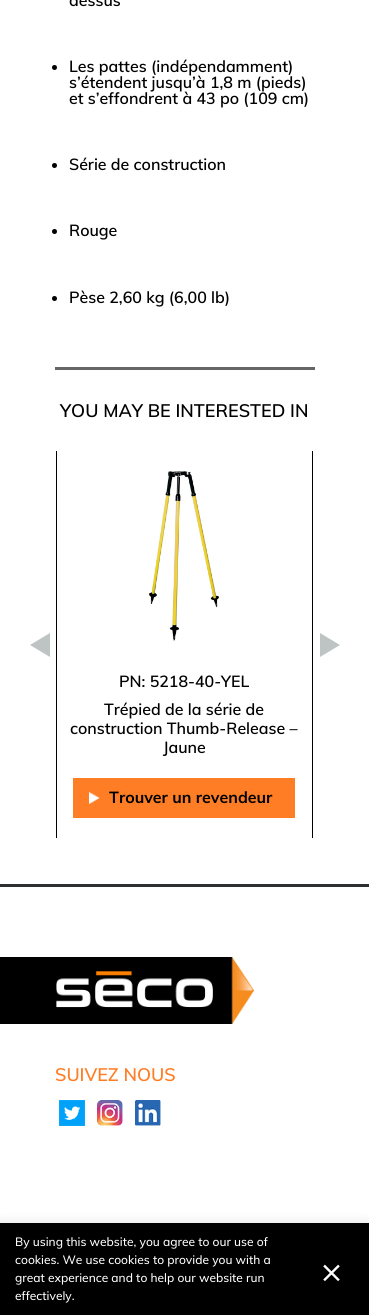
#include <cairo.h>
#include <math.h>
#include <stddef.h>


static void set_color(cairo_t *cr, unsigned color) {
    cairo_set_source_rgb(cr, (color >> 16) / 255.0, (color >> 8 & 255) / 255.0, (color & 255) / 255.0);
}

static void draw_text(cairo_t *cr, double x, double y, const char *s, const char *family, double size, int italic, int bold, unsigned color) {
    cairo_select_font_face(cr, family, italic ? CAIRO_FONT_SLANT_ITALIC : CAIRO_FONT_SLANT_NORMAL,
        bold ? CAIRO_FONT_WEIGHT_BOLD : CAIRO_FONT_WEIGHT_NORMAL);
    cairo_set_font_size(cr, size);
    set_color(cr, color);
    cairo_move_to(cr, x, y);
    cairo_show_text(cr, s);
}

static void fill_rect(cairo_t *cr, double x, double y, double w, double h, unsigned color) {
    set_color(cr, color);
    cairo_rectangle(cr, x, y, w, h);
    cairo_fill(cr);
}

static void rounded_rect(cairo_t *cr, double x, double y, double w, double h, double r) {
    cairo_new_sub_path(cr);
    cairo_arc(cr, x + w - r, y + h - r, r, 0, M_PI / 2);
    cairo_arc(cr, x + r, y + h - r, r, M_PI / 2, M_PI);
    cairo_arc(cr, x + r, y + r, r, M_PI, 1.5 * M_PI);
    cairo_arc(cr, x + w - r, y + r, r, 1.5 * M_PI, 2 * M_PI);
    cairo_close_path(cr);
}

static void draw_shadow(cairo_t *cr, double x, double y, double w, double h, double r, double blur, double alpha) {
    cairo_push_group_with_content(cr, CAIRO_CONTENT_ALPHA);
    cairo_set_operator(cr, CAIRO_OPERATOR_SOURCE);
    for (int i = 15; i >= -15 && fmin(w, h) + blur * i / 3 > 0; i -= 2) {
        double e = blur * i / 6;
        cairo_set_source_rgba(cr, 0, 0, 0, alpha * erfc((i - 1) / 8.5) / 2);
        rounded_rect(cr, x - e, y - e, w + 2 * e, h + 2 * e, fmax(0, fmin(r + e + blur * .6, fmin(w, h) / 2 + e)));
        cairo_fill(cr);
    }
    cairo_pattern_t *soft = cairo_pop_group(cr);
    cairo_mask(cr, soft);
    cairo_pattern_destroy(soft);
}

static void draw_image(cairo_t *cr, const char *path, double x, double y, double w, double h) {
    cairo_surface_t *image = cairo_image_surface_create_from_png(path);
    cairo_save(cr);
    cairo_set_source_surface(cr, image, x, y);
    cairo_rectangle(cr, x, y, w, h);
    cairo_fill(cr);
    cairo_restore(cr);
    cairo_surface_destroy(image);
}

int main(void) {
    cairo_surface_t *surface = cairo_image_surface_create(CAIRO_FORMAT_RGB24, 369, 1315);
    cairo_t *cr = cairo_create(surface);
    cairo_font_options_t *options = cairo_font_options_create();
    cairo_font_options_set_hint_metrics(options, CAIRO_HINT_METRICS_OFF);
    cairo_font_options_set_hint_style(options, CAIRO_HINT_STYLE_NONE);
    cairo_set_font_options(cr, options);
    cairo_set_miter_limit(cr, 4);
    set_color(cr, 0xFFFFFF);
    cairo_paint(cr);
    draw_text(cr, 69, 6, "dessus", "Muli SemiBold", 16, 0, 0, 0x000000);
    cairo_new_path(cr);
    cairo_arc(cr, 54.5, 67.5, 2.5, 0, 2 * M_PI);
    cairo_fill(cr);
    draw_text(cr, 69, 72, "Les pattes (indépendamment)", "Muli SemiBold", 16, 0, 0, 0x000000);
    draw_text(cr, 69, 88, "s’étendent jusqu’à 1,8 m (pieds)", "Muli SemiBold", 16, 0, 0, 0x000000);
    draw_text(cr, 69, 104, "et s’effondrent à 43 po (109 cm)", "Muli SemiBold", 16, 0, 0, 0x000000);
    cairo_new_path(cr);
    cairo_arc(cr, 54.5, 165.5, 2.5, 0, 2 * M_PI);
    cairo_fill(cr);
    draw_text(cr, 69, 170, "Série de construction", "Muli SemiBold", 16, 0, 0, 0x000000);
    cairo_new_path(cr);
    cairo_arc(cr, 54.5, 231.5, 2.5, 0, 2 * M_PI);
    cairo_fill(cr);
    draw_text(cr, 69, 236, "Rouge", "Muli SemiBold", 16, 0, 0, 0x000000);
    cairo_new_path(cr);
    cairo_arc(cr, 54.5, 298.5, 2.5, 0, 2 * M_PI);
    cairo_fill(cr);
    draw_text(cr, 69, 303, "Pèse 2,60 kg (6,00 lb)", "Muli SemiBold", 16, 0, 0, 0x000000);
    fill_rect(cr, 55, 367, 260, 3, 0x666666);
    draw_text(cr, 60, 417, "YOU MAY BE INTERESTED IN", "Muli SemiBold", 18, 0, 0, 0x000000);
    set_color(cr, 0xBDC4C3);
    cairo_new_path(cr);
    cairo_move_to(cr, 50, 633);
    cairo_line_to(cr, 50, 657);
    cairo_line_to(cr, 30, 645);
    cairo_close_path(cr);
    cairo_fill(cr);
    cairo_new_path(cr);
    cairo_move_to(cr, 320, 657);
    cairo_line_to(cr, 320, 633);
    cairo_line_to(cr, 340, 645);
    cairo_close_path(cr);
    cairo_fill(cr);
    fill_rect(cr, 56, 451, 1, 387, 0x000000);
    fill_rect(cr, 312, 451, 1, 387, 0x000000);
    draw_image(cr, "assets/img1.png", 149, 471, 70, 170);
    draw_text(cr, 119, 687, "PN: 5218-40-YEL", "Muli SemiBold", 16, 0, 0, 0x000000);
    draw_text(cr, 104, 715, "Trépied de la série de", "Muli SemiBold", 16, 0, 0, 0x000000);
    draw_text(cr, 70, 734, "construction Thumb-Release –", "Muli SemiBold", 16, 0, 0, 0x000000);
    draw_text(cr, 163, 753, "Jaune", "Muli SemiBold", 16, 0, 0, 0x000000);
    fill_rect(cr, 73, 778, 222, 40, 0xFF7D24);
    draw_image(cr, "assets/img2.png", 89, 792, 11, 12);
    draw_text(cr, 109, 803, "Trouver un revendeur", "Muli", 16, 0, 1, 0x000000);
    fill_rect(cr, 0, 884, 369, 3, 0x2D3030);
    fill_rect(cr, 0, 957, 55, 67, 0x000000);
    draw_image(cr, "assets/img3.png", 55, 957, 199, 67);
    draw_text(cr, 55, 1081, "SUIVEZ NOUS", "Muli SemiBold", 18, 0, 0, 0xFF7D24);
    draw_image(cr, "assets/img4.png", 59, 1100, 26, 26);
    draw_image(cr, "assets/img5.png", 97, 1100, 26, 26);
    draw_image(cr, "assets/img6.png", 135, 1100, 26, 26);
    set_color(cr, 0xACABAB);
    draw_shadow(cr, 0, 1222, 369, 92, 0, 5, 0.3);
    fill_rect(cr, 0, 1223, 369, 92, 0x000000);
    draw_text(cr, 15, 1246, "By using this website, you agree to our use of", "Muli Medium", 12, 0, 0, 0xFFFFFF);
    draw_text(cr, 15, 1264, "cookies. We use cookies to provide you with a", "Muli Medium", 12, 0, 0, 0xFFFFFF);
    draw_text(cr, 15, 1282, "great experience and to help our website run", "Muli Medium", 12, 0, 0, 0xFFFFFF);
    draw_text(cr, 15, 1300, "effectively.", "Muli Medium", 12, 0, 0, 0xFFFFFF);
    draw_text(cr, 321, 1283, "×", "Muli Medium", 35, 0, 0, 0xFFFFFF);
    cairo_surface_write_to_png(surface, "output.png");
    cairo_font_options_destroy(options);
    cairo_destroy(cr);
    cairo_surface_destroy(surface);
    return 0;
}
